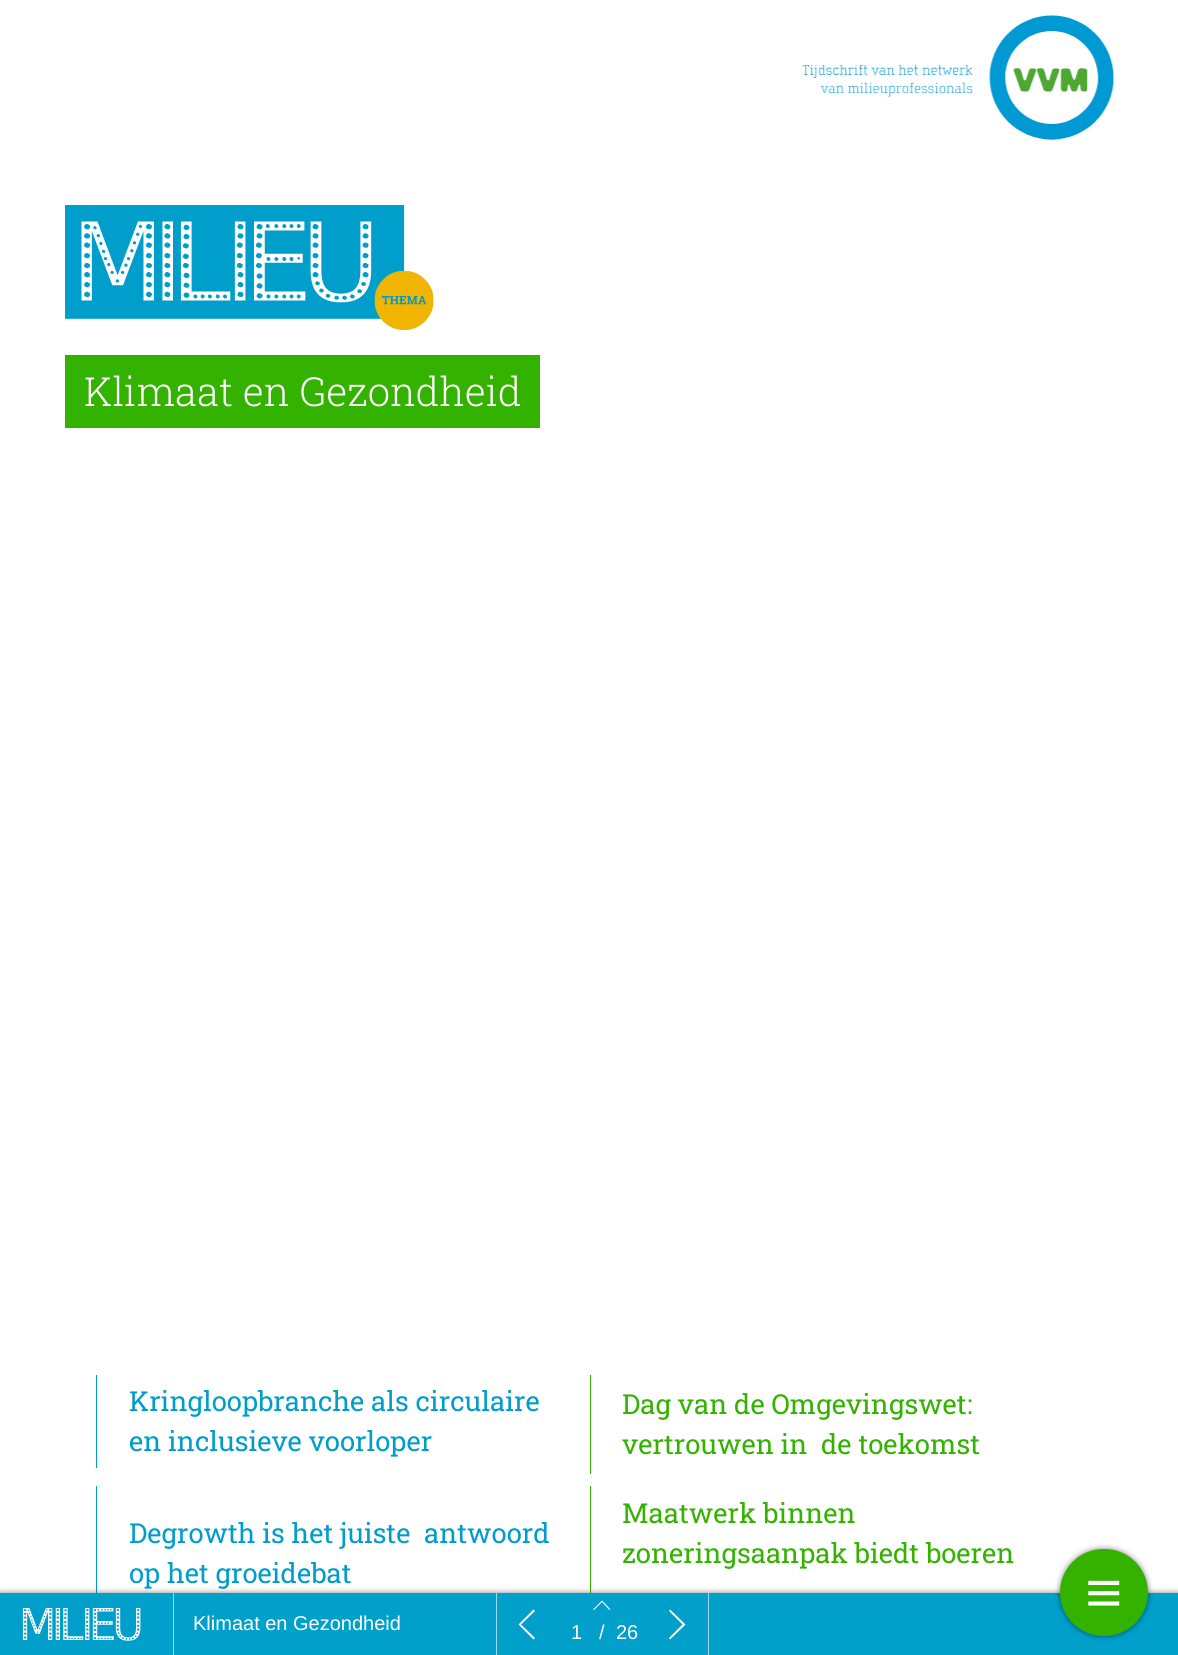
#include <cairo.h>
#include <math.h>
#include <stddef.h>


static void set_color(cairo_t *cr, unsigned color) {
    cairo_set_source_rgb(cr, (color >> 16) / 255.0, (color >> 8 & 255) / 255.0, (color & 255) / 255.0);
}

static void draw_text(cairo_t *cr, double x, double y, const char *s, const char *family, double size, int italic, int bold, unsigned color) {
    cairo_select_font_face(cr, family, italic ? CAIRO_FONT_SLANT_ITALIC : CAIRO_FONT_SLANT_NORMAL,
        bold ? CAIRO_FONT_WEIGHT_BOLD : CAIRO_FONT_WEIGHT_NORMAL);
    cairo_set_font_size(cr, size);
    set_color(cr, color);
    cairo_move_to(cr, x, y);
    cairo_show_text(cr, s);
}

static void fill_rect(cairo_t *cr, double x, double y, double w, double h, unsigned color) {
    set_color(cr, color);
    cairo_rectangle(cr, x, y, w, h);
    cairo_fill(cr);
}

static void rounded_rect(cairo_t *cr, double x, double y, double w, double h, double r) {
    cairo_new_sub_path(cr);
    cairo_arc(cr, x + w - r, y + h - r, r, 0, M_PI / 2);
    cairo_arc(cr, x + r, y + h - r, r, M_PI / 2, M_PI);
    cairo_arc(cr, x + r, y + r, r, M_PI, 1.5 * M_PI);
    cairo_arc(cr, x + w - r, y + r, r, 1.5 * M_PI, 2 * M_PI);
    cairo_close_path(cr);
}

static void draw_shadow(cairo_t *cr, double x, double y, double w, double h, double r, double blur, double alpha) {
    cairo_push_group_with_content(cr, CAIRO_CONTENT_ALPHA);
    cairo_set_operator(cr, CAIRO_OPERATOR_SOURCE);
    for (int i = 15; i >= -15 && fmin(w, h) + blur * i / 3 > 0; i -= 2) {
        double e = blur * i / 6;
        cairo_set_source_rgba(cr, 0, 0, 0, alpha * erfc((i - 1) / 8.5) / 2);
        rounded_rect(cr, x - e, y - e, w + 2 * e, h + 2 * e, fmax(0, fmin(r + e + blur * .6, fmin(w, h) / 2 + e)));
        cairo_fill(cr);
    }
    cairo_pattern_t *soft = cairo_pop_group(cr);
    cairo_mask(cr, soft);
    cairo_pattern_destroy(soft);
}

static void draw_image(cairo_t *cr, const char *path, double x, double y, double w, double h) {
    cairo_surface_t *image = cairo_image_surface_create_from_png(path);
    cairo_save(cr);
    cairo_set_source_surface(cr, image, x, y);
    cairo_rectangle(cr, x, y, w, h);
    cairo_fill(cr);
    cairo_restore(cr);
    cairo_surface_destroy(image);
}

int main(void) {
    cairo_surface_t *surface = cairo_image_surface_create(CAIRO_FORMAT_RGB24, 1178, 1655);
    cairo_t *cr = cairo_create(surface);
    cairo_font_options_t *options = cairo_font_options_create();
    cairo_font_options_set_hint_metrics(options, CAIRO_HINT_METRICS_OFF);
    cairo_font_options_set_hint_style(options, CAIRO_HINT_STYLE_NONE);
    cairo_set_font_options(cr, options);
    cairo_set_miter_limit(cr, 4);
    set_color(cr, 0xFFFFFF);
    cairo_paint(cr);
    draw_image(cr, "assets/img1.png", 802, 15, 312, 125);
    draw_image(cr, "assets/img2.png", 65, 205, 369, 125);
    fill_rect(cr, 65, 355, 475, 73, 0x34B200);
    draw_text(cr, 84, 406, "Klimaat en Gezondheid", "Roboto Slab Light", 40, 0, 0, 0xFFFFFF);
    fill_rect(cr, 96, 1375, 1, 93, 0x009FCB);
    draw_text(cr, 129, 1411, "Kringloopbranche als circulaire", "Roboto Slab", 27.5, 0, 0, 0x009DCC);
    draw_text(cr, 129, 1451, "en inclusieve voorloper", "Roboto Slab", 27.5, 0, 0, 0x009DCC);
    fill_rect(cr, 590, 1375, 1, 99, 0x34B200);
    draw_text(cr, 622, 1414, "Dag van de Omgevingswet:", "Roboto Slab", 27.5, 0, 0, 0x34B200);
    draw_text(cr, 622, 1454, "vertrouwen in  de toekomst", "Roboto Slab", 27.5, 0, 0, 0x34B200);
    fill_rect(cr, 96, 1486, 1, 107, 0x009FCB);
    draw_text(cr, 129, 1543, "Degrowth is het juiste  antwoord", "Roboto Slab", 27.5, 0, 0, 0x009DCC);
    draw_text(cr, 129, 1583, "op het groeidebat", "Roboto Slab", 27.5, 0, 0, 0x009DCC);
    fill_rect(cr, 590, 1486, 1, 107, 0x34B200);
    draw_text(cr, 622, 1523, "Maatwerk binnen", "Roboto Slab", 27.5, 0, 0, 0x34B200);
    draw_text(cr, 622, 1563, "zoneringsaanpak biedt boeren", "Roboto Slab", 27.5, 0, 0, 0x34B200);
    set_color(cr, 0x000000);
    draw_shadow(cr, 0, 1593, 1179, 62, 0, 3, 0.5);
    fill_rect(cr, 0, 1593, 1178, 62, 0x00A0CB);
    draw_image(cr, "assets/img3.png", 22, 1608, 119, 33);
    fill_rect(cr, 173, 1593, 1, 62, 0x99D9EA);
    draw_text(cr, 193, 1630, "Klimaat en Gezondheid", "Liberation Sans", 20, 0, 0, 0xFFFFFF);
    fill_rect(cr, 496, 1593, 1, 62, 0x99D9EA);
    set_color(cr, 0xFFFFFF);
    cairo_new_path(cr);
    cairo_move_to(cr, 521, 1624.5);
    cairo_line_to(cr, 535, 1638);
    cairo_line_to(cr, 533.5, 1639.5);
    cairo_line_to(cr, 518.5, 1624.5);
    cairo_line_to(cr, 533.5, 1609.5);
    cairo_line_to(cr, 535, 1611);
    cairo_close_path(cr);
    cairo_fill(cr);
    cairo_new_path(cr);
    cairo_move_to(cr, 610.5, 1609.5);
    cairo_line_to(cr, 609.5, 1610);
    cairo_line_to(cr, 602, 1602);
    cairo_line_to(cr, 594, 1610);
    cairo_line_to(cr, 593, 1609.5);
    cairo_line_to(cr, 602, 1600.5);
    cairo_close_path(cr);
    cairo_fill(cr);
    draw_text(cr, 571, 1639, "1", "Liberation Sans", 20, 0, 0, 0xFFFFFF);
    draw_text(cr, 599, 1639, "/", "Liberation Sans", 20, 0, 0, 0xFFFFFF);
    draw_text(cr, 616, 1639, "26", "Liberation Sans", 20, 0, 0, 0xFFFFFF);
    fill_rect(cr, 708, 1593, 1, 62, 0x99D9EA);
    set_color(cr, 0xFFFFFF);
    cairo_new_path(cr);
    cairo_move_to(cr, 685.5, 1624.5);
    cairo_line_to(cr, 670, 1639.5);
    cairo_line_to(cr, 669, 1638);
    cairo_line_to(cr, 682.5, 1624.5);
    cairo_line_to(cr, 669, 1611);
    cairo_line_to(cr, 670, 1609.5);
    cairo_close_path(cr);
    cairo_fill(cr);
    set_color(cr, 0x000000);
    draw_shadow(cr, 1060, 1549, 88, 87, 43.5, 3, 0.5);
    set_color(cr, 0x34B200);
    rounded_rect(cr, 1060, 1549, 88, 87, 43.5);
    cairo_fill(cr);
    draw_image(cr, "assets/img4.png", 1088, 1580, 32, 26);
    cairo_surface_write_to_png(surface, "output.png");
    cairo_font_options_destroy(options);
    cairo_destroy(cr);
    cairo_surface_destroy(surface);
    return 0;
}
